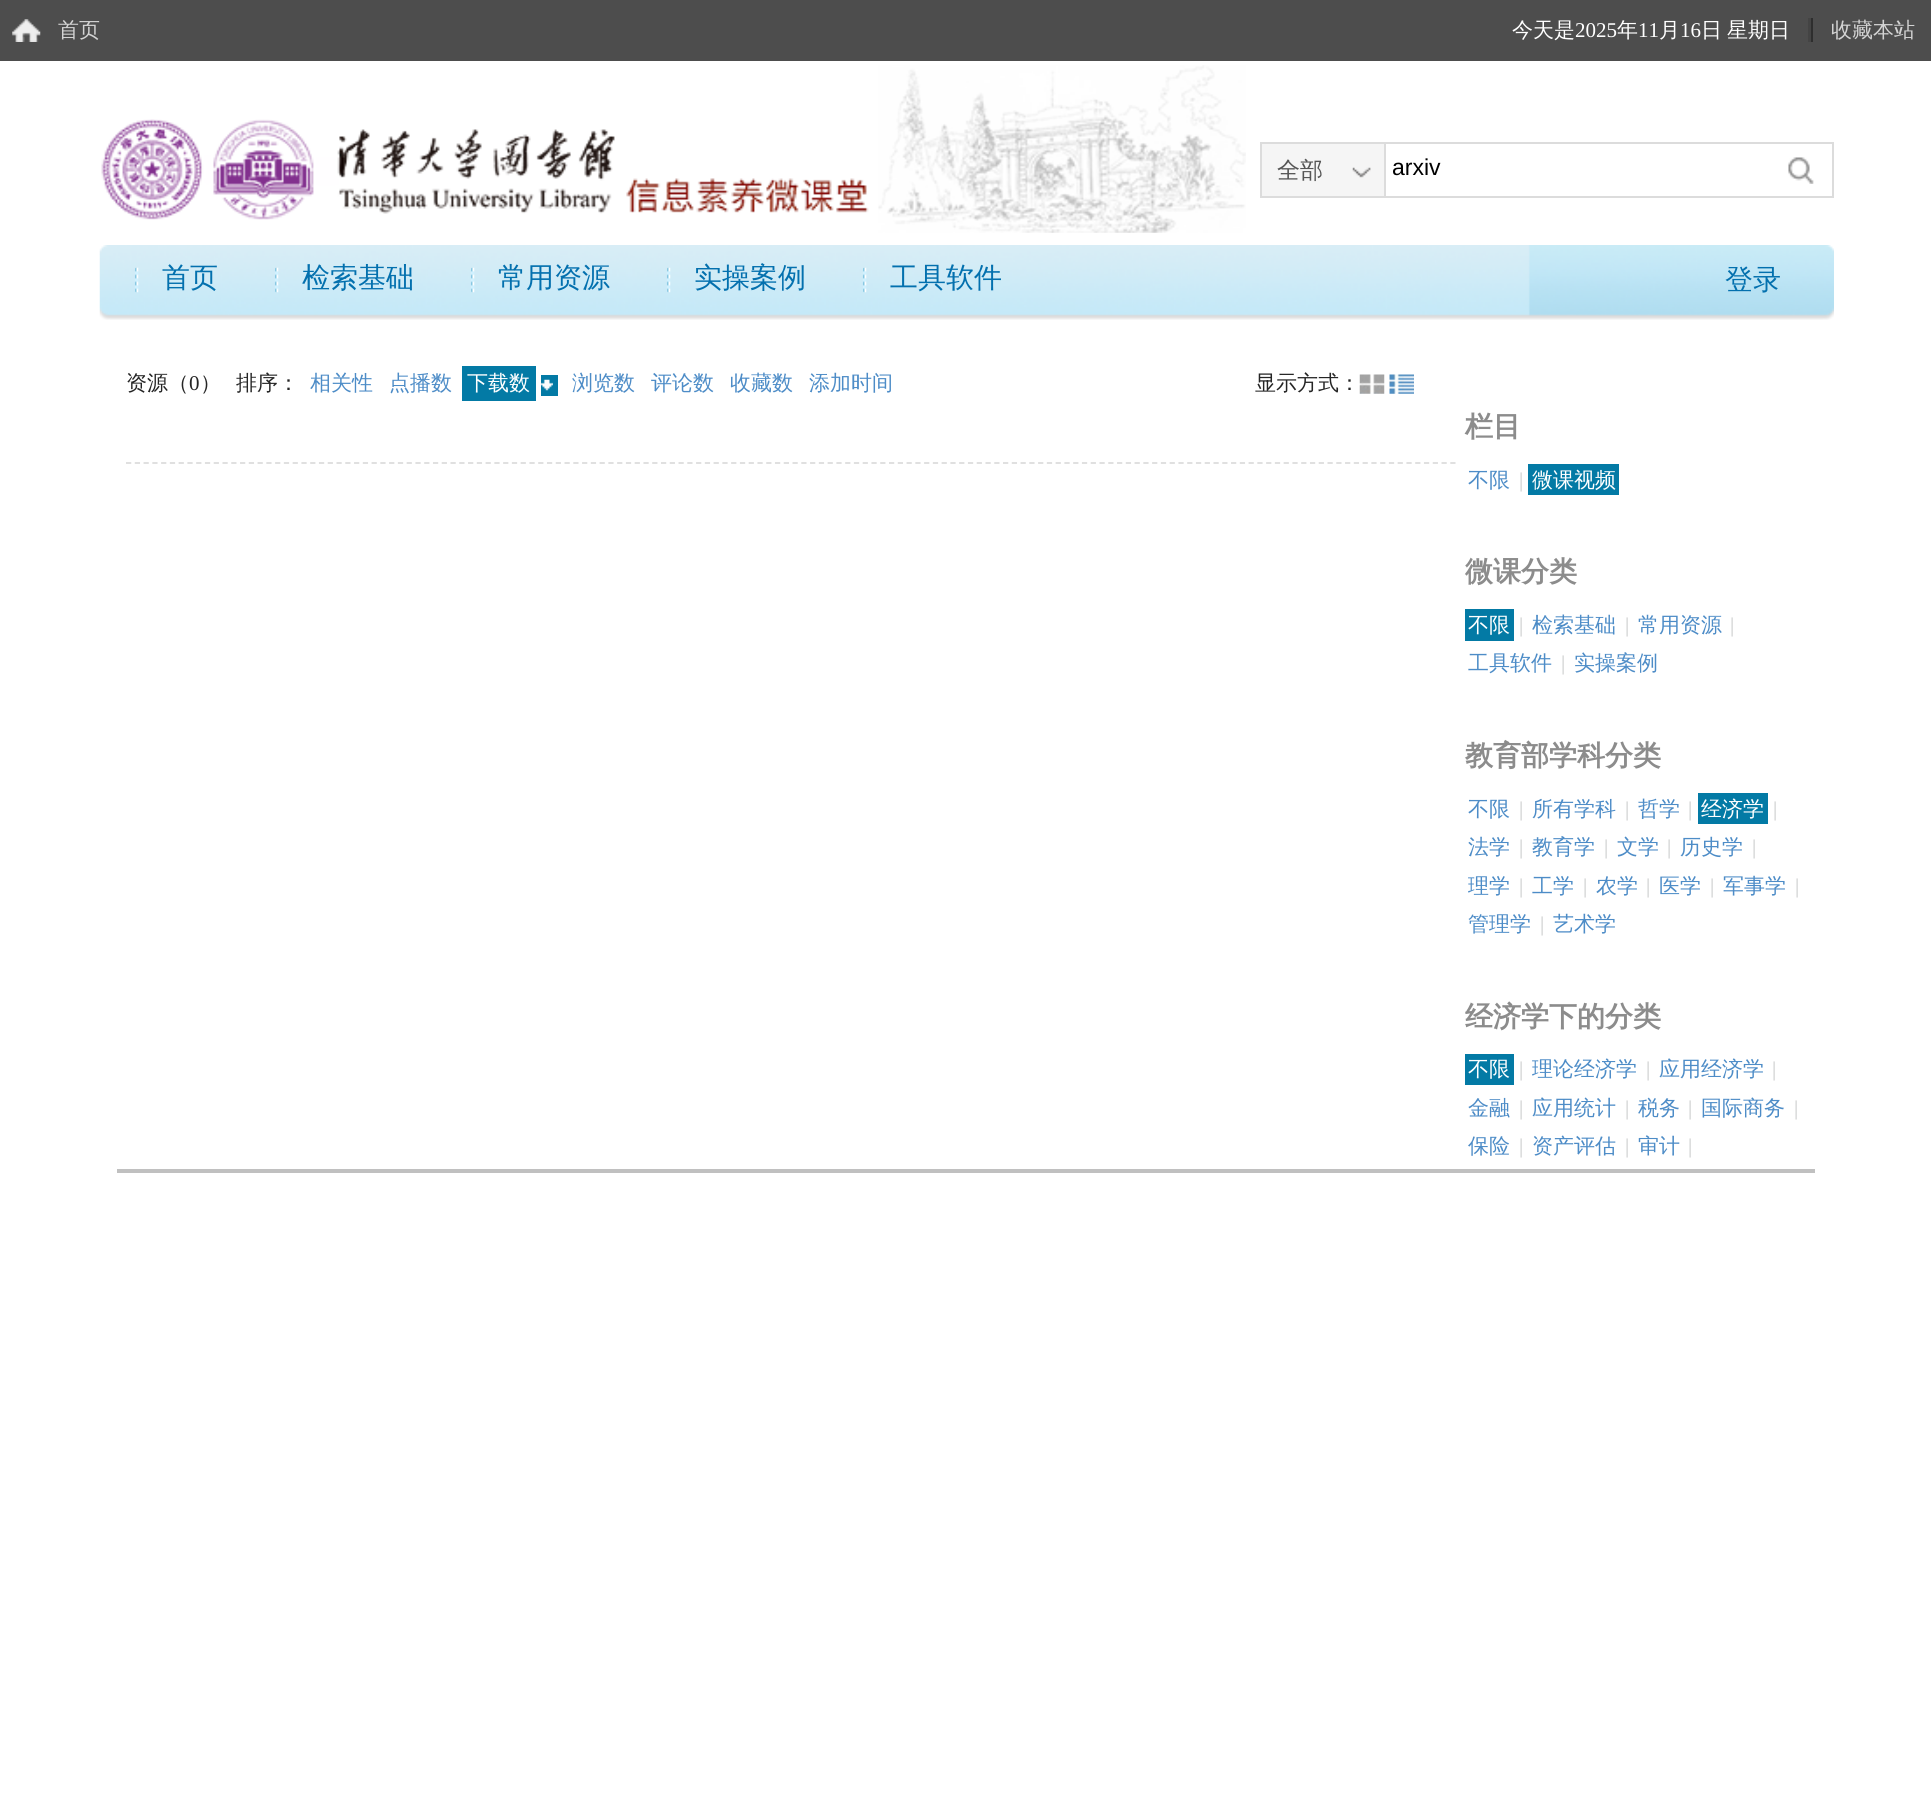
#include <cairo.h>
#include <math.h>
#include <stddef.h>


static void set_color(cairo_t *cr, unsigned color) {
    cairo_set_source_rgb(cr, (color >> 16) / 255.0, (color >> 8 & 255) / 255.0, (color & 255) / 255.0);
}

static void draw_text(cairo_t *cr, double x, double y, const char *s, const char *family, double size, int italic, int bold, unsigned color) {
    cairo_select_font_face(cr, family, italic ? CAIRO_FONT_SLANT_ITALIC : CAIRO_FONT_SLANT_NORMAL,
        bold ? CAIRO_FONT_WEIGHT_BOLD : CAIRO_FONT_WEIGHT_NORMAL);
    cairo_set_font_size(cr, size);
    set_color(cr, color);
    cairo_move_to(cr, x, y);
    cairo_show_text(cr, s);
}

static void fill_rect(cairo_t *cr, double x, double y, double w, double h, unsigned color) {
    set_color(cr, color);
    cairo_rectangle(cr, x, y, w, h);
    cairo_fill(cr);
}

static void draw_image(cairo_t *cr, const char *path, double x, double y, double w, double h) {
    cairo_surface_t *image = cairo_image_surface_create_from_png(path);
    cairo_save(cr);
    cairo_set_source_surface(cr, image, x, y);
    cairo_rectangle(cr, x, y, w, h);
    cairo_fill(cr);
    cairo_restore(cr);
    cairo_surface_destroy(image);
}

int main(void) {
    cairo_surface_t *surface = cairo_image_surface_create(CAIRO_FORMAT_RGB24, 1931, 1799);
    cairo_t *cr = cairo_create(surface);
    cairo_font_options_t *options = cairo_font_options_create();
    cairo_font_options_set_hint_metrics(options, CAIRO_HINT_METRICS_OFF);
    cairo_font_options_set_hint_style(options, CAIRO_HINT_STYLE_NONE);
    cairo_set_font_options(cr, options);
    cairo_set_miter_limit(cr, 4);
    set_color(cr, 0xFFFFFF);
    cairo_paint(cr);
    fill_rect(cr, 0, 0, 1931, 61, 0x4D4D4D);
    draw_image(cr, "assets/img1.png", 12, 19, 29, 23);
    draw_text(cr, 58, 37, "首页", "WenQuanYi Zen Hei Medium", 21, 0, 0, 0xD3D3D3);
    draw_text(cr, 1512, 37, "今天是", "WenQuanYi Zen Hei Medium", 21, 0, 0, 0xFFFFFF);
    draw_text(cr, 1575, 37, "2025", "Liberation Serif", 21, 0, 0, 0xFFFFFF);
    draw_text(cr, 1617, 37, "年", "WenQuanYi Zen Hei Medium", 21, 0, 0, 0xFFFFFF);
    draw_text(cr, 1638, 37, "11", "Liberation Serif", 21, 0, 0, 0xFFFFFF);
    draw_text(cr, 1659, 37, "月", "WenQuanYi Zen Hei Medium", 21, 0, 0, 0xFFFFFF);
    draw_text(cr, 1680, 37, "16", "Liberation Serif", 21, 0, 0, 0xFFFFFF);
    draw_text(cr, 1701, 37, "日", "WenQuanYi Zen Hei Medium", 21, 0, 0, 0xFFFFFF);
    draw_text(cr, 1727, 37, "星期日", "WenQuanYi Zen Hei Medium", 21, 0, 0, 0xFFFFFF);
    fill_rect(cr, 1808, 18, 3, 24, 0x444444);
    draw_text(cr, 1831, 37, "收藏本站", "WenQuanYi Zen Hei Medium", 21, 0, 0, 0xD3D3D3);
    fill_rect(cr, 1811, 18, 2, 24, 0x2E2E2E);
    draw_image(cr, "assets/img2.png", 101, 119, 768, 101);
    draw_image(cr, "assets/img3.png", 878, 65, 368, 168);
    cairo_rectangle(cr, 1261, 143, 572, 54);
    set_color(cr, 0xDCDCDC);
    cairo_stroke(cr);
    fill_rect(cr, 1262, 144, 122, 52, 0xF5F5F5);
    draw_image(cr, "assets/img4.png", 1352, 167, 19, 11);
    fill_rect(cr, 1384, 144, 2, 52, 0xDCDCDC);
    draw_text(cr, 1277, 178, "全部", "WenQuanYi Zen Hei Medium", 23, 0, 0, 0x555555);
    draw_text(cr, 1392, 175, "arxiv", "Liberation Sans", 23, 0, 0, 0x000000);
    draw_image(cr, "assets/img5.png", 1788, 157, 26, 27);
    draw_image(cr, "assets/img6.png", 99, 245, 1735, 75);
    draw_image(cr, "assets/img7.png", 134, 267, 5, 26);
    draw_text(cr, 162, 287, "首页", "WenQuanYi Zen Hei Medium", 28, 0, 0, 0x0370AE);
    draw_image(cr, "assets/img8.png", 274, 267, 5, 26);
    draw_text(cr, 302, 287, "检索基础", "WenQuanYi Zen Hei Medium", 28, 0, 0, 0x0370AE);
    draw_image(cr, "assets/img9.png", 470, 267, 5, 26);
    draw_text(cr, 498, 287, "常用资源", "WenQuanYi Zen Hei Medium", 28, 0, 0, 0x0370AE);
    draw_image(cr, "assets/img10.png", 666, 267, 5, 26);
    draw_text(cr, 694, 287, "实操案例", "WenQuanYi Zen Hei Medium", 28, 0, 0, 0x0370AE);
    draw_image(cr, "assets/img11.png", 862, 267, 5, 26);
    draw_text(cr, 890, 287, "工具软件", "WenQuanYi Zen Hei Medium", 28, 0, 0, 0x0370AE);
    draw_text(cr, 1725, 289, "登录", "WenQuanYi Zen Hei Medium", 28, 0, 0, 0x0370AE);
    draw_text(cr, 126, 390, "资源（", "WenQuanYi Zen Hei Medium", 21, 0, 0, 0x252525);
    draw_text(cr, 189, 390, "0", "Liberation Serif", 21, 0, 0, 0x252525);
    draw_text(cr, 200, 390, "）", "WenQuanYi Zen Hei Medium", 21, 0, 0, 0x252525);
    draw_text(cr, 236, 390, "排序：", "WenQuanYi Zen Hei Medium", 21, 0, 0, 0x252525);
    draw_text(cr, 310, 390, "相关性", "WenQuanYi Zen Hei Medium", 21, 0, 0, 0x4D8CC7);
    draw_text(cr, 389, 390, "点播数", "WenQuanYi Zen Hei Medium", 21, 0, 0, 0x4D8CC7);
    fill_rect(cr, 462, 366, 74, 35, 0x037AA5);
    fill_rect(cr, 541, 375, 17, 21, 0x037AA5);
    draw_text(cr, 467, 390, "下载数", "WenQuanYi Zen Hei Medium", 21, 0, 0, 0xFFFFFF);
    draw_image(cr, "assets/img12.png", 541, 379, 12, 12);
    draw_text(cr, 572, 390, "浏览数", "WenQuanYi Zen Hei Medium", 21, 0, 0, 0x4D8CC7);
    draw_text(cr, 651, 390, "评论数", "WenQuanYi Zen Hei Medium", 21, 0, 0, 0x4D8CC7);
    draw_text(cr, 730, 390, "收藏数", "WenQuanYi Zen Hei Medium", 21, 0, 0, 0x4D8CC7);
    draw_text(cr, 809, 390, "添加时间", "WenQuanYi Zen Hei Medium", 21, 0, 0, 0x4D8CC7);
    draw_text(cr, 1255, 390, "显示方式：", "WenQuanYi Zen Hei Medium", 21, 0, 0, 0x252525);
    draw_image(cr, "assets/img13.png", 1359, 374, 26, 20);
    draw_image(cr, "assets/img14.png", 1389, 374, 25, 20);
    cairo_new_path(cr);
    cairo_move_to(cr, 126, 463);
    cairo_line_to(cr, 1456, 463);
    set_color(cr, 0xDDDDDD);
    cairo_set_line_width(cr, 1.8);
    cairo_set_dash(cr, (double[]){5.25, 3.52}, 2, 0);
    cairo_stroke(cr);
    draw_text(cr, 1465, 436, "栏目", "WenQuanYi Zen Hei", 28, 0, 1, 0x8C8C8C);
    draw_text(cr, 1468, 487, "不限", "WenQuanYi Zen Hei Medium", 21, 0, 0, 0x4D8CC7);
    draw_text(cr, 1519, 487, "|", "Liberation Serif", 21, 0, 0, 0xC9CACB);
    fill_rect(cr, 1528, 464, 91, 31, 0x037AA5);
    draw_text(cr, 1532, 487, "微课视频", "WenQuanYi Zen Hei Medium", 21, 0, 0, 0xFFFFFF);
    draw_text(cr, 1465, 581, "微课分类", "WenQuanYi Zen Hei", 28, 0, 1, 0x8C8C8C);
    fill_rect(cr, 1465, 609, 49, 32, 0x037AA5);
    draw_text(cr, 1468, 632, "不限", "WenQuanYi Zen Hei Medium", 21, 0, 0, 0xFFFFFF);
    draw_text(cr, 1519, 632, "|", "Liberation Serif", 21, 0, 0, 0xC9CACB);
    draw_text(cr, 1532, 632, "检索基础", "WenQuanYi Zen Hei Medium", 21, 0, 0, 0x4D8CC7);
    draw_text(cr, 1625, 632, "|", "Liberation Serif", 21, 0, 0, 0xC9CACB);
    draw_text(cr, 1638, 632, "常用资源", "WenQuanYi Zen Hei Medium", 21, 0, 0, 0x4D8CC7);
    draw_text(cr, 1730, 632, "|", "Liberation Serif", 21, 0, 0, 0xC9CACB);
    draw_text(cr, 1468, 670, "工具软件", "WenQuanYi Zen Hei Medium", 21, 0, 0, 0x4D8CC7);
    draw_text(cr, 1561, 670, "|", "Liberation Serif", 21, 0, 0, 0xC9CACB);
    draw_text(cr, 1574, 670, "实操案例", "WenQuanYi Zen Hei Medium", 21, 0, 0, 0x4D8CC7);
    draw_text(cr, 1465, 765, "教育部学科分类", "WenQuanYi Zen Hei", 28, 0, 1, 0x8C8C8C);
    draw_text(cr, 1468, 816, "不限", "WenQuanYi Zen Hei Medium", 21, 0, 0, 0x4D8CC7);
    draw_text(cr, 1519, 816, "|", "Liberation Serif", 21, 0, 0, 0xC9CACB);
    draw_text(cr, 1532, 816, "所有学科", "WenQuanYi Zen Hei Medium", 21, 0, 0, 0x4D8CC7);
    draw_text(cr, 1625, 816, "|", "Liberation Serif", 21, 0, 0, 0xC9CACB);
    draw_text(cr, 1638, 816, "哲学", "WenQuanYi Zen Hei Medium", 21, 0, 0, 0x4D8CC7);
    draw_text(cr, 1688, 816, "|", "Liberation Serif", 21, 0, 0, 0xC9CACB);
    fill_rect(cr, 1698, 793, 70, 31, 0x037AA5);
    draw_text(cr, 1701, 816, "经济学", "WenQuanYi Zen Hei Medium", 21, 0, 0, 0xFFFFFF);
    draw_text(cr, 1773, 816, "|", "Liberation Serif", 21, 0, 0, 0xC9CACB);
    draw_text(cr, 1468, 854, "法学", "WenQuanYi Zen Hei Medium", 21, 0, 0, 0x4D8CC7);
    draw_text(cr, 1519, 854, "|", "Liberation Serif", 21, 0, 0, 0xC9CACB);
    draw_text(cr, 1532, 854, "教育学", "WenQuanYi Zen Hei Medium", 21, 0, 0, 0x4D8CC7);
    draw_text(cr, 1604, 854, "|", "Liberation Serif", 21, 0, 0, 0xC9CACB);
    draw_text(cr, 1617, 854, "文学", "WenQuanYi Zen Hei Medium", 21, 0, 0, 0x4D8CC7);
    draw_text(cr, 1667, 854, "|", "Liberation Serif", 21, 0, 0, 0xC9CACB);
    draw_text(cr, 1680, 854, "历史学", "WenQuanYi Zen Hei Medium", 21, 0, 0, 0x4D8CC7);
    draw_text(cr, 1752, 854, "|", "Liberation Serif", 21, 0, 0, 0xC9CACB);
    draw_text(cr, 1468, 893, "理学", "WenQuanYi Zen Hei Medium", 21, 0, 0, 0x4D8CC7);
    draw_text(cr, 1519, 893, "|", "Liberation Serif", 21, 0, 0, 0xC9CACB);
    draw_text(cr, 1532, 893, "工学", "WenQuanYi Zen Hei Medium", 21, 0, 0, 0x4D8CC7);
    draw_text(cr, 1583, 893, "|", "Liberation Serif", 21, 0, 0, 0xC9CACB);
    draw_text(cr, 1596, 893, "农学", "WenQuanYi Zen Hei Medium", 21, 0, 0, 0x4D8CC7);
    draw_text(cr, 1646, 893, "|", "Liberation Serif", 21, 0, 0, 0xC9CACB);
    draw_text(cr, 1659, 893, "医学", "WenQuanYi Zen Hei Medium", 21, 0, 0, 0x4D8CC7);
    draw_text(cr, 1710, 893, "|", "Liberation Serif", 21, 0, 0, 0xC9CACB);
    draw_text(cr, 1723, 893, "军事学", "WenQuanYi Zen Hei Medium", 21, 0, 0, 0x4D8CC7);
    draw_text(cr, 1795, 893, "|", "Liberation Serif", 21, 0, 0, 0xC9CACB);
    draw_text(cr, 1468, 931, "管理学", "WenQuanYi Zen Hei Medium", 21, 0, 0, 0x4D8CC7);
    draw_text(cr, 1540, 931, "|", "Liberation Serif", 21, 0, 0, 0xC9CACB);
    draw_text(cr, 1553, 931, "艺术学", "WenQuanYi Zen Hei Medium", 21, 0, 0, 0x4D8CC7);
    draw_text(cr, 1465, 1026, "经济学下的分类", "WenQuanYi Zen Hei", 28, 0, 1, 0x8C8C8C);
    fill_rect(cr, 1465, 1054, 49, 31, 0x037AA5);
    draw_text(cr, 1468, 1076, "不限", "WenQuanYi Zen Hei Medium", 21, 0, 0, 0xFFFFFF);
    draw_text(cr, 1519, 1076, "|", "Liberation Serif", 21, 0, 0, 0xC9CACB);
    draw_text(cr, 1532, 1076, "理论经济学", "WenQuanYi Zen Hei Medium", 21, 0, 0, 0x4D8CC7);
    draw_text(cr, 1646, 1076, "|", "Liberation Serif", 21, 0, 0, 0xC9CACB);
    draw_text(cr, 1659, 1076, "应用经济学", "WenQuanYi Zen Hei Medium", 21, 0, 0, 0x4D8CC7);
    draw_text(cr, 1772, 1076, "|", "Liberation Serif", 21, 0, 0, 0xC9CACB);
    draw_text(cr, 1468, 1115, "金融", "WenQuanYi Zen Hei Medium", 21, 0, 0, 0x4D8CC7);
    draw_text(cr, 1519, 1115, "|", "Liberation Serif", 21, 0, 0, 0xC9CACB);
    draw_text(cr, 1532, 1115, "应用统计", "WenQuanYi Zen Hei Medium", 21, 0, 0, 0x4D8CC7);
    draw_text(cr, 1625, 1115, "|", "Liberation Serif", 21, 0, 0, 0xC9CACB);
    draw_text(cr, 1638, 1115, "税务", "WenQuanYi Zen Hei Medium", 21, 0, 0, 0x4D8CC7);
    draw_text(cr, 1688, 1115, "|", "Liberation Serif", 21, 0, 0, 0xC9CACB);
    draw_text(cr, 1701, 1115, "国际商务", "WenQuanYi Zen Hei Medium", 21, 0, 0, 0x4D8CC7);
    draw_text(cr, 1794, 1115, "|", "Liberation Serif", 21, 0, 0, 0xC9CACB);
    draw_text(cr, 1468, 1153, "保险", "WenQuanYi Zen Hei Medium", 21, 0, 0, 0x4D8CC7);
    draw_text(cr, 1519, 1153, "|", "Liberation Serif", 21, 0, 0, 0xC9CACB);
    draw_text(cr, 1532, 1153, "资产评估", "WenQuanYi Zen Hei Medium", 21, 0, 0, 0x4D8CC7);
    draw_text(cr, 1625, 1153, "|", "Liberation Serif", 21, 0, 0, 0xC9CACB);
    draw_text(cr, 1638, 1153, "审计", "WenQuanYi Zen Hei Medium", 21, 0, 0, 0x4D8CC7);
    draw_text(cr, 1688, 1153, "|", "Liberation Serif", 21, 0, 0, 0xC9CACB);
    fill_rect(cr, 117, 1169, 1698, 4, 0xC0C0C0);
    cairo_surface_write_to_png(surface, "output.png");
    cairo_font_options_destroy(options);
    cairo_destroy(cr);
    cairo_surface_destroy(surface);
    return 0;
}
